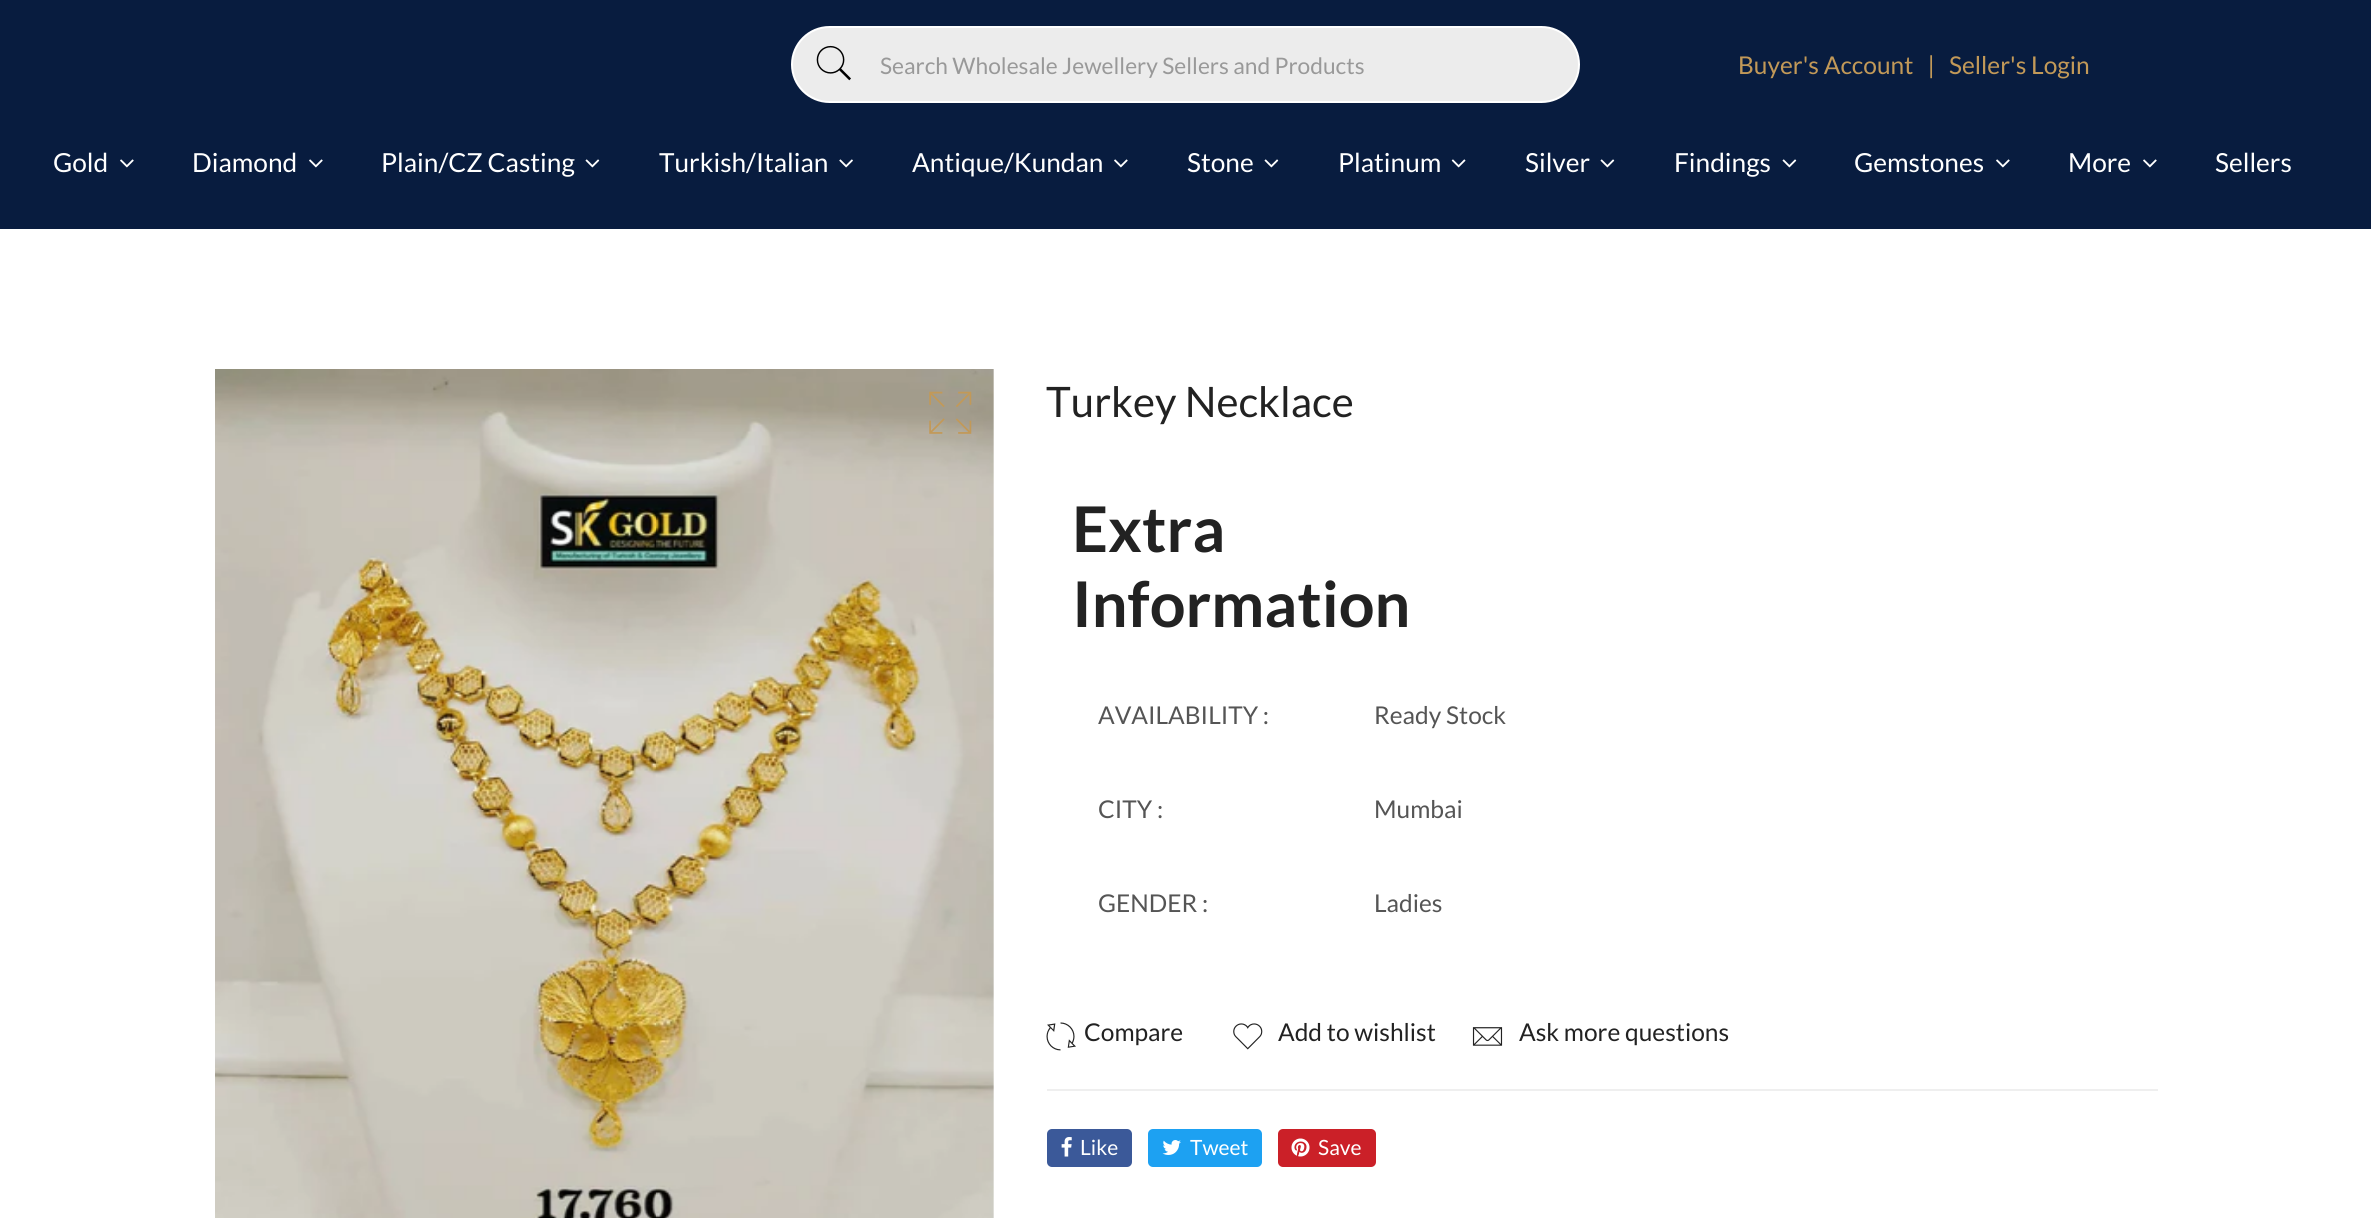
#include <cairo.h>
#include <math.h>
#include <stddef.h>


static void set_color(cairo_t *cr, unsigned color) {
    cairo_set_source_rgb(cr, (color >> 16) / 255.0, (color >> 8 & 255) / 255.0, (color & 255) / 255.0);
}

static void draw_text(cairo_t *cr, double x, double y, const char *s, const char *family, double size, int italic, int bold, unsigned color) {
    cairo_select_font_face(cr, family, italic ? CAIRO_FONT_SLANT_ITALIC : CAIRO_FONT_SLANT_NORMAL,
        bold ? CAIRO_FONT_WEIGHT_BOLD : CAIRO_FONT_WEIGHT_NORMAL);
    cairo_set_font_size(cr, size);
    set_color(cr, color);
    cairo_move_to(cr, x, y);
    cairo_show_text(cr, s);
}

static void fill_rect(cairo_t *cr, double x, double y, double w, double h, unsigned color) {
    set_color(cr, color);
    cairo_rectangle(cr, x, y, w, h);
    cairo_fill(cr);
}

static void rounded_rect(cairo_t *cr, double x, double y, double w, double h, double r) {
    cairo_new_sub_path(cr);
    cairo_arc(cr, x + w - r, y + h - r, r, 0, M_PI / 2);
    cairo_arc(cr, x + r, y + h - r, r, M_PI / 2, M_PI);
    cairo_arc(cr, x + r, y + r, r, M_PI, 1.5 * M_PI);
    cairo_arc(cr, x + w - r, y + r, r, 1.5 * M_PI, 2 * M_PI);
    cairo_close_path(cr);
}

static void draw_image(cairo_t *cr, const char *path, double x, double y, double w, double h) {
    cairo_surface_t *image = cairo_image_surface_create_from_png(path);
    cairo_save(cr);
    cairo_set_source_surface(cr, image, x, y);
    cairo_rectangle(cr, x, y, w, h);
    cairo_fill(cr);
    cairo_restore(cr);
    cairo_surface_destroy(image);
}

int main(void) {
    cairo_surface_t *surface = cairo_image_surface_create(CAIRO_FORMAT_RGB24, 2371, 1218);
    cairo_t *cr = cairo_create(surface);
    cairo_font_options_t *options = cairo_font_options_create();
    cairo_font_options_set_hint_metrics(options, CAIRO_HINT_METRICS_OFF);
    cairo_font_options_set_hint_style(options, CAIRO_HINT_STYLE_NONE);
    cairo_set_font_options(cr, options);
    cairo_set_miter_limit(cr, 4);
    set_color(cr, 0xFFFFFF);
    cairo_paint(cr);
    fill_rect(cr, 0, 0, 2371, 229, 0x081C3F);
    set_color(cr, 0xECECEC);
    rounded_rect(cr, 792, 27, 787, 75, 37.5);
    cairo_fill_preserve(cr);
    set_color(cr, 0xFFFFFF);
    cairo_stroke(cr);
    draw_image(cr, "assets/img1.png", 816, 45, 35, 36);
    draw_text(cr, 880, 74, "Search Wholesale Jewellery Sellers and Products", "Lato", 22.75, 0, 0, 0x999999);
    draw_text(cr, 1738, 74, "Buyer's Account   |", "Lato", 24.5, 0, 0, 0xC29958);
    draw_text(cr, 1949, 74, "Seller's Login", "Lato", 24.5, 0, 0, 0xC29958);
    draw_text(cr, 53, 172, "Gold", "Lato", 26.25, 0, 0, 0xFFFFFF);
    draw_image(cr, "assets/img2.png", 120, 159, 14, 9);
    draw_text(cr, 192, 172, "Diamond", "Lato", 26.25, 0, 0, 0xFFFFFF);
    draw_image(cr, "assets/img2.png", 309, 159, 14, 9);
    draw_text(cr, 381, 172, "Plain/CZ Casting", "Lato", 26.25, 0, 0, 0xFFFFFF);
    draw_image(cr, "assets/img3.png", 585, 159, 15, 9);
    draw_text(cr, 659, 172, "Turkish/Italian", "Lato", 26.25, 0, 0, 0xFFFFFF);
    draw_image(cr, "assets/img4.png", 839, 159, 14, 9);
    draw_text(cr, 912, 172, "Antique/Kundan", "Lato", 26.25, 0, 0, 0xFFFFFF);
    draw_image(cr, "assets/img2.png", 1114, 159, 14, 9);
    draw_text(cr, 1187, 172, "Stone", "Lato", 26.25, 0, 0, 0xFFFFFF);
    draw_image(cr, "assets/img3.png", 1264, 159, 15, 9);
    draw_text(cr, 1338, 172, "Platinum", "Lato", 26.25, 0, 0, 0xFFFFFF);
    draw_image(cr, "assets/img5.png", 1451, 159, 15, 9);
    draw_text(cr, 1525, 172, "Silver", "Lato", 26.25, 0, 0, 0xFFFFFF);
    draw_image(cr, "assets/img3.png", 1600, 159, 15, 9);
    draw_text(cr, 1674, 172, "Findings", "Lato", 26.25, 0, 0, 0xFFFFFF);
    draw_image(cr, "assets/img3.png", 1782, 159, 15, 9);
    draw_text(cr, 1854, 172, "Gemstones", "Lato", 26.25, 0, 0, 0xFFFFFF);
    draw_image(cr, "assets/img2.png", 1996, 159, 14, 9);
    draw_text(cr, 2068, 172, "More", "Lato", 26.25, 0, 0, 0xFFFFFF);
    draw_image(cr, "assets/img2.png", 2143, 159, 14, 9);
    draw_text(cr, 2215, 172, "Sellers", "Lato", 26.25, 0, 0, 0xFFFFFF);
    draw_image(cr, "assets/img6.png", 215, 369, 779, 849);
    draw_image(cr, "assets/img7.png", 929, 391, 43, 43);
    draw_text(cr, 1046, 417, "Turkey Necklace", "Lato", 42, 0, 0, 0x222222);
    draw_text(cr, 1072, 552, "Extra", "Lato", 63, 0, 1, 0x222222);
    draw_text(cr, 1072, 627, "Information", "Lato", 63, 0, 1, 0x222222);
    draw_text(cr, 1098, 724, "AVAILABILITY :", "Lato", 24.5, 0, 0, 0x555555);
    draw_text(cr, 1374, 724, "Ready Stock", "Lato", 24.5, 0, 0, 0x555555);
    draw_text(cr, 1098, 818, "CITY :", "Lato", 24.5, 0, 0, 0x555555);
    draw_text(cr, 1374, 818, "Mumbai", "Lato", 24.5, 0, 0, 0x555555);
    draw_text(cr, 1098, 912, "GENDER :", "Lato", 24.5, 0, 0, 0x555555);
    draw_text(cr, 1374, 912, "Ladies", "Lato", 24.5, 0, 0, 0x555555);
    draw_image(cr, "assets/img8.png", 1046, 1022, 30, 29);
    draw_text(cr, 1084, 1041, "Compare", "Lato", 24.5, 0, 0, 0x222222);
    draw_image(cr, "assets/img9.png", 1233, 1023, 30, 27);
    draw_text(cr, 1278, 1041, "Add to wishlist", "Lato", 24.5, 0, 0, 0x222222);
    draw_image(cr, "assets/img10.png", 1472, 1027, 31, 19);
    draw_text(cr, 1519, 1041, "Ask more questions", "Lato", 24.5, 0, 0, 0x222222);
    fill_rect(cr, 1047, 1089, 1111, 2, 0xEFEFEF);
    set_color(cr, 0x3B5999);
    rounded_rect(cr, 1047, 1129, 85, 38, 5);
    cairo_fill(cr);
    draw_image(cr, "assets/img11.png", 1061, 1137, 11, 20);
    draw_text(cr, 1080, 1155, "Like", "Lato", 21, 0, 0, 0xFFFFFF);
    set_color(cr, 0x1DA1F2);
    rounded_rect(cr, 1148, 1129, 114, 38, 5);
    cairo_fill(cr);
    draw_image(cr, "assets/img12.png", 1162, 1140, 19, 15);
    draw_text(cr, 1190, 1155, "Tweet", "Lato", 21, 0, 0, 0xFFFFFF);
    set_color(cr, 0xCB2028);
    rounded_rect(cr, 1278, 1129, 98, 38, 5);
    cairo_fill(cr);
    draw_image(cr, "assets/img13.png", 1291, 1138, 19, 19);
    draw_text(cr, 1318, 1155, "Save", "Lato", 21, 0, 0, 0xFFFFFF);
    cairo_surface_write_to_png(surface, "output.png");
    cairo_font_options_destroy(options);
    cairo_destroy(cr);
    cairo_surface_destroy(surface);
    return 0;
}
